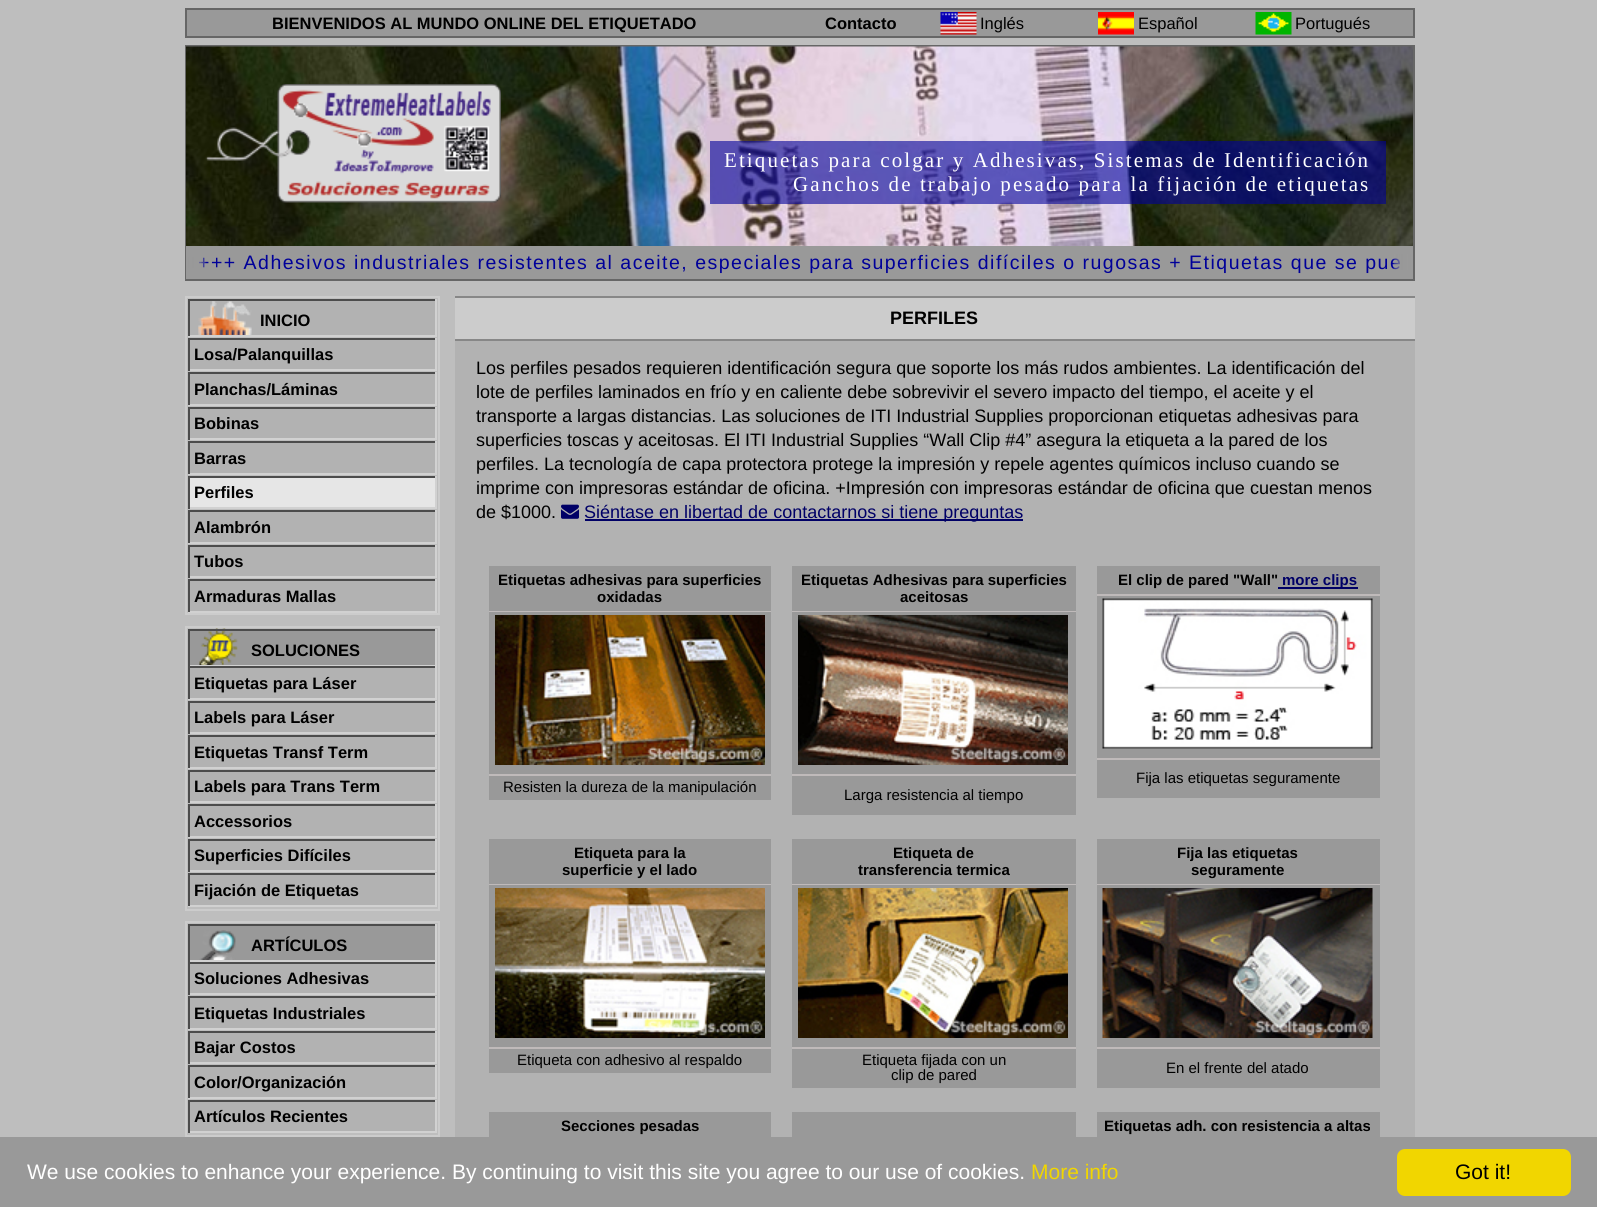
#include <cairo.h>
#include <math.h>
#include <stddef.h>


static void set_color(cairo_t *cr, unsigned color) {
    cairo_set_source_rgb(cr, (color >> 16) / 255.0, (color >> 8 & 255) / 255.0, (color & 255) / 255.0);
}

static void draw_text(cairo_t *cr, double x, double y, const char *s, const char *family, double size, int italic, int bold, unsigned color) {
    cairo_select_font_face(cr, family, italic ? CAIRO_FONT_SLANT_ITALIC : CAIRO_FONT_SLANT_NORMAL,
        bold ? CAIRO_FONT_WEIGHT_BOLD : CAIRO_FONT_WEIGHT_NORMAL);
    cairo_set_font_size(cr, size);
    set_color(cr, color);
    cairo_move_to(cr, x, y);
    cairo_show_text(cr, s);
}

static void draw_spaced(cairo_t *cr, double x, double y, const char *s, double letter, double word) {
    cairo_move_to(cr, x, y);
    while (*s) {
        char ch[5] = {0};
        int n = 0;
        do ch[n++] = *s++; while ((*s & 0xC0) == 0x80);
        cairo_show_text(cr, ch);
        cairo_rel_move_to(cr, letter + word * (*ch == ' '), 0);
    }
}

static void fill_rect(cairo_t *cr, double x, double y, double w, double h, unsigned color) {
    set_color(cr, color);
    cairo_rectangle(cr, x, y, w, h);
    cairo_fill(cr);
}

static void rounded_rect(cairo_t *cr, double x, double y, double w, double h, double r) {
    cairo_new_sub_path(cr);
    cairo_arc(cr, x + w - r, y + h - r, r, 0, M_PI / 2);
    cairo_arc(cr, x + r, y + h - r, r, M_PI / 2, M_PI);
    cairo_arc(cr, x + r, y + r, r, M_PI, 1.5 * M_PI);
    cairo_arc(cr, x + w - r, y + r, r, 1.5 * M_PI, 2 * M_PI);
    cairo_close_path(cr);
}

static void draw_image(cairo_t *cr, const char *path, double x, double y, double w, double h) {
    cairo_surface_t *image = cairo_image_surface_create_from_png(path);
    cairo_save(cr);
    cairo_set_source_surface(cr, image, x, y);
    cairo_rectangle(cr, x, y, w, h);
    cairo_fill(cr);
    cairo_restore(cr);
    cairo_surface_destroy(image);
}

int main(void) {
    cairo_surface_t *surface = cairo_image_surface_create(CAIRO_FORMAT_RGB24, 1597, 1207);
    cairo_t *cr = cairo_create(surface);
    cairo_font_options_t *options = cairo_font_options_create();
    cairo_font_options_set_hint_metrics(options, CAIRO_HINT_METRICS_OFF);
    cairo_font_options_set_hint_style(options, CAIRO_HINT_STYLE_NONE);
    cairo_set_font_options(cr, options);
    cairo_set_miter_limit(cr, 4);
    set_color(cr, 0xBEBEBE);
    cairo_paint(cr);
    set_color(cr, 0x999999);
    cairo_rectangle(cr, 186, 9, 1228, 28);
    cairo_fill_preserve(cr);
    set_color(cr, 0x666666);
    cairo_stroke(cr);
    draw_text(cr, 272, 29, "BIENVENIDOS AL MUNDO ONLINE DEL ETIQUETADO", "Liberation Sans", 16.5, 0, 1, 0x000000);
    draw_text(cr, 825, 29, "Contacto", "Liberation Sans", 16.5, 0, 1, 0x000000);
    draw_image(cr, "assets/img1.png", 940, 12, 37, 23);
    draw_text(cr, 980, 29, "Inglés", "Liberation Sans", 16.5, 0, 0, 0x000000);
    draw_image(cr, "assets/img2.png", 1098, 12, 36, 23);
    draw_text(cr, 1138, 29, "Español", "Liberation Sans", 16.5, 0, 0, 0x000000);
    draw_image(cr, "assets/img3.png", 1255, 12, 37, 23);
    draw_text(cr, 1295, 29, "Portugués", "Liberation Sans", 16.5, 0, 0, 0x000000);
    cairo_rectangle(cr, 186, 46, 1228, 234);
    set_color(cr, 0x666666);
    cairo_stroke(cr);
    draw_image(cr, "assets/img4.png", 186, 46, 1227, 200);
    draw_image(cr, "assets/img5.png", 205, 84, 296, 119);
    cairo_set_source_rgba(cr, 0, 0, 0.6, 0.6);
    cairo_rectangle(cr, 710, 141, 676, 63);
    cairo_fill(cr);
    cairo_select_font_face(cr, "Liberation Serif", CAIRO_FONT_SLANT_NORMAL, CAIRO_FONT_WEIGHT_NORMAL);
    cairo_set_font_size(cr, 21);
    set_color(cr, 0xFFFFFF);
    draw_spaced(cr, 724, 167, "Etiquetas para colgar y Adhesivas, Sistemas de Identificación", 2.1, 0);
    draw_spaced(cr, 793, 191, "Ganchos de trabajo pesado para la fijación de etiquetas", 2.1, 0);
    fill_rect(cr, 186, 246, 1227, 33, 0x999999);
    cairo_select_font_face(cr, "Liberation Sans", CAIRO_FONT_SLANT_NORMAL, CAIRO_FONT_WEIGHT_NORMAL);
    cairo_set_font_size(cr, 19.5);
    set_color(cr, 0x000099);
    draw_spaced(cr, 198, 269, "+++ Adhesivos industriales resistentes al aceite, especiales para superficies difíciles o rugosas + Etiquetas que se pue", 1.5, 0);
    draw_image(cr, "assets/img6.png", 186, 257, 20, 11);
    draw_image(cr, "assets/img7.png", 1393, 254, 20, 16);
    cairo_rectangle(cr, 186, 297, 253, 317);
    set_color(cr, 0xCCCCCC);
    cairo_stroke(cr);
    fill_rect(cr, 190, 301, 245, 34, 0xB2B2B2);
    draw_image(cr, "assets/img8.png", 198, 301, 54, 34);
    fill_rect(cr, 188, 299, 249, 2, 0x4C4C4C);
    fill_rect(cr, 435, 299, 2, 37, 0xD1D1D1);
    fill_rect(cr, 188, 335, 249, 2, 0xD1D1D1);
    fill_rect(cr, 188, 299, 2, 37, 0x4C4C4C);
    draw_text(cr, 260, 326, "INICIO", "Liberation Sans", 16.5, 0, 1, 0x000000);
    fill_rect(cr, 190, 340, 245, 29, 0xB2B2B2);
    fill_rect(cr, 188, 338, 249, 2, 0x4C4C4C);
    fill_rect(cr, 435, 338, 2, 33, 0xD1D1D1);
    fill_rect(cr, 188, 369, 249, 2, 0xD1D1D1);
    fill_rect(cr, 188, 338, 2, 33, 0x4C4C4C);
    draw_text(cr, 194, 360, "Losa/Palanquillas", "Liberation Sans", 16.5, 0, 1, 0x000000);
    fill_rect(cr, 190, 374, 245, 30, 0xB2B2B2);
    fill_rect(cr, 188, 372, 249, 2, 0x4C4C4C);
    fill_rect(cr, 435, 372, 2, 33, 0xD1D1D1);
    fill_rect(cr, 188, 404, 249, 2, 0xD1D1D1);
    fill_rect(cr, 188, 372, 2, 33, 0x4C4C4C);
    draw_text(cr, 194, 395, "Planchas/Láminas", "Liberation Sans", 16.5, 0, 1, 0x000000);
    fill_rect(cr, 190, 409, 245, 29, 0xB2B2B2);
    fill_rect(cr, 188, 407, 249, 2, 0x4C4C4C);
    fill_rect(cr, 435, 407, 2, 33, 0xD1D1D1);
    fill_rect(cr, 188, 438, 249, 2, 0xD1D1D1);
    fill_rect(cr, 188, 407, 2, 33, 0x4C4C4C);
    draw_text(cr, 194, 429, "Bobinas", "Liberation Sans", 16.5, 0, 1, 0x000000);
    fill_rect(cr, 190, 443, 245, 30, 0xB2B2B2);
    fill_rect(cr, 188, 441, 249, 2, 0x4C4C4C);
    fill_rect(cr, 435, 441, 2, 33, 0xD1D1D1);
    fill_rect(cr, 188, 473, 249, 2, 0xD1D1D1);
    fill_rect(cr, 188, 441, 2, 33, 0x4C4C4C);
    draw_text(cr, 194, 464, "Barras", "Liberation Sans", 16.5, 0, 1, 0x000000);
    fill_rect(cr, 190, 478, 245, 29, 0xE6E6E6);
    fill_rect(cr, 188, 476, 249, 2, 0x4C4C4C);
    fill_rect(cr, 435, 476, 2, 33, 0xD1D1D1);
    fill_rect(cr, 188, 507, 249, 2, 0xD1D1D1);
    fill_rect(cr, 188, 476, 2, 33, 0x4C4C4C);
    draw_text(cr, 194, 498, "Perfiles", "Liberation Sans", 16.5, 0, 1, 0x000000);
    fill_rect(cr, 190, 512, 245, 30, 0xB2B2B2);
    fill_rect(cr, 188, 510, 249, 2, 0x4C4C4C);
    fill_rect(cr, 435, 510, 2, 33, 0xD1D1D1);
    fill_rect(cr, 188, 542, 249, 2, 0xD1D1D1);
    fill_rect(cr, 188, 510, 2, 33, 0x4C4C4C);
    draw_text(cr, 194, 533, "Alambrón", "Liberation Sans", 16.5, 0, 1, 0x000000);
    fill_rect(cr, 190, 547, 245, 29, 0xB2B2B2);
    fill_rect(cr, 188, 545, 249, 2, 0x4C4C4C);
    fill_rect(cr, 435, 545, 2, 33, 0xD1D1D1);
    fill_rect(cr, 188, 576, 249, 2, 0xD1D1D1);
    fill_rect(cr, 188, 545, 2, 33, 0x4C4C4C);
    draw_text(cr, 194, 567, "Tubos", "Liberation Sans", 16.5, 0, 1, 0x000000);
    fill_rect(cr, 190, 581, 245, 30, 0xB2B2B2);
    fill_rect(cr, 188, 579, 249, 2, 0x4C4C4C);
    fill_rect(cr, 435, 579, 2, 33, 0xD1D1D1);
    fill_rect(cr, 188, 611, 249, 2, 0xD1D1D1);
    fill_rect(cr, 188, 579, 2, 33, 0x4C4C4C);
    draw_text(cr, 194, 602, "Armaduras Mallas", "Liberation Sans", 16.5, 0, 1, 0x000000);
    cairo_rectangle(cr, 186, 627, 253, 283);
    set_color(cr, 0xCCCCCC);
    cairo_stroke(cr);
    fill_rect(cr, 190, 631, 245, 34, 0x999999);
    draw_image(cr, "assets/img9.png", 199, 628, 39, 37);
    fill_rect(cr, 188, 629, 249, 2, 0x4C4C4C);
    fill_rect(cr, 435, 629, 2, 37, 0xD1D1D1);
    fill_rect(cr, 188, 665, 249, 1, 0xD1D1D1);
    fill_rect(cr, 188, 629, 2, 37, 0x4C4C4C);
    draw_text(cr, 251, 656, "SOLUCIONES", "Liberation Sans", 16.5, 0, 1, 0x000000);
    fill_rect(cr, 190, 668, 245, 30, 0xB2B2B2);
    fill_rect(cr, 188, 666, 249, 2, 0x4C4C4C);
    fill_rect(cr, 435, 666, 2, 33, 0xD1D1D1);
    fill_rect(cr, 188, 698, 249, 2, 0xD1D1D1);
    fill_rect(cr, 188, 666, 2, 33, 0x4C4C4C);
    draw_text(cr, 194, 689, "Etiquetas para Láser", "Liberation Sans", 16.5, 0, 1, 0x000000);
    fill_rect(cr, 190, 703, 245, 29, 0xB2B2B2);
    fill_rect(cr, 188, 701, 249, 2, 0x4C4C4C);
    fill_rect(cr, 435, 701, 2, 33, 0xD1D1D1);
    fill_rect(cr, 188, 732, 249, 2, 0xD1D1D1);
    fill_rect(cr, 188, 701, 2, 33, 0x4C4C4C);
    draw_text(cr, 194, 723, "Labels para Láser", "Liberation Sans", 16.5, 0, 1, 0x000000);
    fill_rect(cr, 190, 737, 245, 30, 0xB2B2B2);
    fill_rect(cr, 188, 735, 249, 2, 0x4C4C4C);
    fill_rect(cr, 435, 735, 2, 33, 0xD1D1D1);
    fill_rect(cr, 188, 767, 249, 2, 0xD1D1D1);
    fill_rect(cr, 188, 735, 2, 33, 0x4C4C4C);
    draw_text(cr, 194, 758, "Etiquetas Transf Term", "Liberation Sans", 16.5, 0, 1, 0x000000);
    fill_rect(cr, 190, 772, 245, 29, 0xB2B2B2);
    fill_rect(cr, 188, 770, 249, 2, 0x4C4C4C);
    fill_rect(cr, 435, 770, 2, 33, 0xD1D1D1);
    fill_rect(cr, 188, 801, 249, 2, 0xD1D1D1);
    fill_rect(cr, 188, 770, 2, 33, 0x4C4C4C);
    draw_text(cr, 194, 792, "Labels para Trans Term", "Liberation Sans", 16.5, 0, 1, 0x000000);
    fill_rect(cr, 190, 806, 245, 30, 0xB2B2B2);
    fill_rect(cr, 188, 804, 249, 2, 0x4C4C4C);
    fill_rect(cr, 435, 804, 2, 33, 0xD1D1D1);
    fill_rect(cr, 188, 836, 249, 2, 0xD1D1D1);
    fill_rect(cr, 188, 804, 2, 33, 0x4C4C4C);
    draw_text(cr, 194, 827, "Accessorios", "Liberation Sans", 16.5, 0, 1, 0x000000);
    fill_rect(cr, 190, 841, 245, 29, 0xB2B2B2);
    fill_rect(cr, 188, 839, 249, 2, 0x4C4C4C);
    fill_rect(cr, 435, 839, 2, 33, 0xD1D1D1);
    fill_rect(cr, 188, 870, 249, 2, 0xD1D1D1);
    fill_rect(cr, 188, 839, 2, 33, 0x4C4C4C);
    draw_text(cr, 194, 861, "Superficies Difíciles", "Liberation Sans", 16.5, 0, 1, 0x000000);
    fill_rect(cr, 190, 875, 245, 30, 0xB2B2B2);
    fill_rect(cr, 188, 873, 249, 2, 0x4C4C4C);
    fill_rect(cr, 435, 873, 2, 33, 0xD1D1D1);
    fill_rect(cr, 188, 905, 249, 2, 0xD1D1D1);
    fill_rect(cr, 188, 873, 2, 33, 0x4C4C4C);
    draw_text(cr, 194, 896, "Fijación de Etiquetas", "Liberation Sans", 16.5, 0, 1, 0x000000);
    cairo_rectangle(cr, 186, 922, 253, 214);
    set_color(cr, 0xCCCCCC);
    cairo_stroke(cr);
    fill_rect(cr, 190, 926, 245, 34, 0x999999);
    draw_image(cr, "assets/img10.png", 199, 930, 37, 30);
    fill_rect(cr, 188, 924, 249, 2, 0x4C4C4C);
    fill_rect(cr, 435, 924, 2, 38, 0xD1D1D1);
    fill_rect(cr, 188, 960, 249, 2, 0xD1D1D1);
    fill_rect(cr, 188, 924, 2, 38, 0x4C4C4C);
    draw_text(cr, 251, 951, "ARTÍCULOS", "Liberation Sans", 16.5, 0, 1, 0x000000);
    fill_rect(cr, 190, 964, 245, 29, 0xB2B2B2);
    fill_rect(cr, 188, 962, 249, 2, 0x4C4C4C);
    fill_rect(cr, 435, 962, 2, 33, 0xD1D1D1);
    fill_rect(cr, 188, 993, 249, 2, 0xD1D1D1);
    fill_rect(cr, 188, 962, 2, 33, 0x4C4C4C);
    draw_text(cr, 194, 984, "Soluciones Adhesivas", "Liberation Sans", 16.5, 0, 1, 0x000000);
    fill_rect(cr, 190, 998, 245, 30, 0xB2B2B2);
    fill_rect(cr, 188, 996, 249, 2, 0x4C4C4C);
    fill_rect(cr, 435, 996, 2, 33, 0xD1D1D1);
    fill_rect(cr, 188, 1028, 249, 2, 0xD1D1D1);
    fill_rect(cr, 188, 996, 2, 33, 0x4C4C4C);
    draw_text(cr, 194, 1019, "Etiquetas Industriales", "Liberation Sans", 16.5, 0, 1, 0x000000);
    fill_rect(cr, 190, 1033, 245, 29, 0xB2B2B2);
    fill_rect(cr, 188, 1031, 249, 2, 0x4C4C4C);
    fill_rect(cr, 435, 1031, 2, 33, 0xD1D1D1);
    fill_rect(cr, 188, 1062, 249, 2, 0xD1D1D1);
    fill_rect(cr, 188, 1031, 2, 33, 0x4C4C4C);
    draw_text(cr, 194, 1053, "Bajar Costos", "Liberation Sans", 16.5, 0, 1, 0x000000);
    fill_rect(cr, 190, 1067, 245, 30, 0xB2B2B2);
    fill_rect(cr, 188, 1065, 249, 2, 0x4C4C4C);
    fill_rect(cr, 435, 1065, 2, 33, 0xD1D1D1);
    fill_rect(cr, 188, 1097, 249, 2, 0xD1D1D1);
    fill_rect(cr, 188, 1065, 2, 33, 0x4C4C4C);
    draw_text(cr, 194, 1088, "Color/Organización", "Liberation Sans", 16.5, 0, 1, 0x000000);
    fill_rect(cr, 190, 1102, 245, 29, 0xB2B2B2);
    fill_rect(cr, 188, 1100, 249, 2, 0x4C4C4C);
    fill_rect(cr, 435, 1100, 2, 33, 0xD1D1D1);
    fill_rect(cr, 188, 1131, 249, 2, 0xD1D1D1);
    fill_rect(cr, 188, 1100, 2, 33, 0x4C4C4C);
    draw_text(cr, 194, 1122, "Artículos Recientes", "Liberation Sans", 16.5, 0, 1, 0x000000);
    fill_rect(cr, 455, 298, 960, 41, 0xCCCCCC);
    fill_rect(cr, 455, 296, 960, 2, 0x878787);
    fill_rect(cr, 455, 339, 960, 2, 0x878787);
    draw_text(cr, 890, 324, "PERFILES", "Liberation Sans", 18, 0, 1, 0x000000);
    fill_rect(cr, 455, 341, 960, 796, 0xB2B2B2);
    draw_text(cr, 476, 374, "Los perfiles pesados requieren identificación segura que soporte los más rudos ambientes. La identificación del", "Liberation Sans", 18, 0, 0, 0x000000);
    draw_text(cr, 476, 398, "lote de perfiles laminados en frío y en caliente debe sobrevivir el severo impacto del tiempo, el aceite y el", "Liberation Sans", 18, 0, 0, 0x000000);
    draw_text(cr, 476, 422, "transporte a largas distancias. Las soluciones de ITI Industrial Supplies proporcionan etiquetas adhesivas para", "Liberation Sans", 18, 0, 0, 0x000000);
    draw_text(cr, 476, 446, "superficies toscas y aceitosas. El ITI Industrial Supplies “Wall Clip #4” asegura la etiqueta a la pared de los", "Liberation Sans", 18, 0, 0, 0x000000);
    draw_text(cr, 476, 470, "perfiles. La tecnología de capa protectora protege la impresión y repele agentes químicos incluso cuando se", "Liberation Sans", 18, 0, 0, 0x000000);
    draw_text(cr, 476, 494, "imprime con impresoras estándar de oficina. +Impresión con impresoras estándar de oficina que cuestan menos", "Liberation Sans", 18, 0, 0, 0x000000);
    draw_text(cr, 476, 518, "de $1000.", "Liberation Sans", 18, 0, 0, 0x000000);
    draw_image(cr, "assets/img11.png", 561, 504, 18, 15);
    fill_rect(cr, 585, 519, 438, 2, 0x000066);
    draw_text(cr, 584, 518, "Siéntase en libertad de contactarnos si tiene preguntas", "Liberation Sans", 18, 0, 0, 0x000066);
    fill_rect(cr, 489, 566, 282, 45, 0x999999);
    fill_rect(cr, 489, 611, 282, 1, 0xBFBABA);
    draw_text(cr, 498, 585, "Etiquetas adhesivas para superficies", "Liberation Sans", 15, 0, 1, 0x000000);
    draw_text(cr, 597, 602, "oxidadas", "Liberation Sans", 15, 0, 1, 0x000000);
    fill_rect(cr, 489, 612, 282, 162, 0x999999);
    draw_image(cr, "assets/img12.png", 495, 615, 270, 150);
    fill_rect(cr, 489, 776, 282, 24, 0x999999);
    fill_rect(cr, 489, 774, 282, 2, 0xBFBABA);
    draw_text(cr, 503, 792, "Resisten la dureza de la manipulación", "Liberation Sans", 15, 0, 0, 0x000000);
    fill_rect(cr, 792, 566, 284, 45, 0x999999);
    fill_rect(cr, 792, 611, 284, 1, 0xBFBABA);
    draw_text(cr, 801, 585, "Etiquetas Adhesivas para superficies", "Liberation Sans", 15, 0, 1, 0x000000);
    draw_text(cr, 900, 602, "aceitosas", "Liberation Sans", 15, 0, 1, 0x000000);
    fill_rect(cr, 792, 612, 284, 162, 0x999999);
    draw_image(cr, "assets/img13.png", 798, 615, 270, 150);
    fill_rect(cr, 792, 776, 284, 39, 0x999999);
    fill_rect(cr, 792, 774, 284, 2, 0xBFBABA);
    draw_text(cr, 844, 800, "Larga resistencia al tiempo", "Liberation Sans", 15, 0, 0, 0x000000);
    fill_rect(cr, 1097, 566, 283, 28, 0x999999);
    fill_rect(cr, 1097, 594, 283, 2, 0xBFBABA);
    draw_text(cr, 1118, 585, "El clip de pared \"Wall\"", "Liberation Sans", 15, 0, 1, 0x000000);
    fill_rect(cr, 1278, 587, 80, 2, 0x000066);
    draw_text(cr, 1282, 585, "more clips", "Liberation Sans", 15, 0, 1, 0x000066);
    fill_rect(cr, 1097, 596, 283, 162, 0x999999);
    draw_image(cr, "assets/img14.png", 1102, 598, 271, 151);
    fill_rect(cr, 1097, 760, 283, 38, 0x999999);
    fill_rect(cr, 1097, 758, 283, 2, 0xBFBABA);
    draw_text(cr, 1136, 783, "Fija las etiquetas seguramente", "Liberation Sans", 15, 0, 0, 0x000000);
    fill_rect(cr, 489, 839, 282, 45, 0x999999);
    fill_rect(cr, 489, 884, 282, 1, 0xBFBABA);
    draw_text(cr, 574, 858, "Etiqueta para la", "Liberation Sans", 15, 0, 1, 0x000000);
    draw_text(cr, 562, 875, "superficie y el lado", "Liberation Sans", 15, 0, 1, 0x000000);
    fill_rect(cr, 489, 885, 282, 162, 0x999999);
    draw_image(cr, "assets/img15.png", 495, 888, 270, 150);
    fill_rect(cr, 489, 1049, 282, 24, 0x999999);
    fill_rect(cr, 489, 1047, 282, 2, 0xBFBABA);
    draw_text(cr, 517, 1065, "Etiqueta con adhesivo al respaldo", "Liberation Sans", 15, 0, 0, 0x000000);
    fill_rect(cr, 792, 839, 284, 45, 0x999999);
    fill_rect(cr, 792, 884, 284, 1, 0xBFBABA);
    draw_text(cr, 893, 858, "Etiqueta de", "Liberation Sans", 15, 0, 1, 0x000000);
    draw_text(cr, 858, 875, "transferencia termica", "Liberation Sans", 15, 0, 1, 0x000000);
    fill_rect(cr, 792, 885, 284, 162, 0x999999);
    draw_image(cr, "assets/img16.png", 798, 888, 270, 150);
    fill_rect(cr, 792, 1049, 284, 39, 0x999999);
    fill_rect(cr, 792, 1047, 284, 2, 0xBFBABA);
    draw_text(cr, 862, 1065, "Etiqueta fijada con un", "Liberation Sans", 15, 0, 0, 0x000000);
    draw_text(cr, 891, 1080, "clip de pared", "Liberation Sans", 15, 0, 0, 0x000000);
    fill_rect(cr, 1097, 839, 283, 45, 0x999999);
    fill_rect(cr, 1097, 884, 283, 1, 0xBFBABA);
    draw_text(cr, 1177, 858, "Fija las etiquetas", "Liberation Sans", 15, 0, 1, 0x000000);
    draw_text(cr, 1191, 875, "seguramente", "Liberation Sans", 15, 0, 1, 0x000000);
    fill_rect(cr, 1097, 885, 283, 162, 0x999999);
    draw_image(cr, "assets/img17.png", 1102, 888, 271, 150);
    fill_rect(cr, 1097, 1049, 283, 39, 0x999999);
    fill_rect(cr, 1097, 1047, 283, 2, 0xBFBABA);
    draw_text(cr, 1166, 1073, "En el frente del atado", "Liberation Sans", 15, 0, 0, 0x000000);
    fill_rect(cr, 489, 1112, 282, 25, 0x999999);
    draw_text(cr, 561, 1131, "Secciones pesadas", "Liberation Sans", 15, 0, 1, 0x000000);
    fill_rect(cr, 792, 1112, 284, 25, 0x999999);
    fill_rect(cr, 1097, 1112, 283, 25, 0x999999);
    draw_text(cr, 1104, 1131, "Etiquetas adh. con resistencia a altas", "Liberation Sans", 15, 0, 1, 0x000000);
    fill_rect(cr, 0, 1137, 1597, 70, 0x999999);
    draw_text(cr, 27, 1179, "We use cookies to enhance your experience. By continuing to visit this site you agree to our use of cookies.", "Liberation Sans", 21, 0, 0, 0xFFFFFF);
    draw_text(cr, 1031, 1179, "More info", "Liberation Sans", 21, 0, 0, 0xF1D600);
    rounded_rect(cr, 1397, 1149, 174, 47, 8);
    cairo_fill(cr);
    draw_text(cr, 1455, 1179, "Got it!", "Liberation Sans", 21, 0, 0, 0x000000);
    cairo_surface_write_to_png(surface, "output.png");
    cairo_font_options_destroy(options);
    cairo_destroy(cr);
    cairo_surface_destroy(surface);
    return 0;
}
